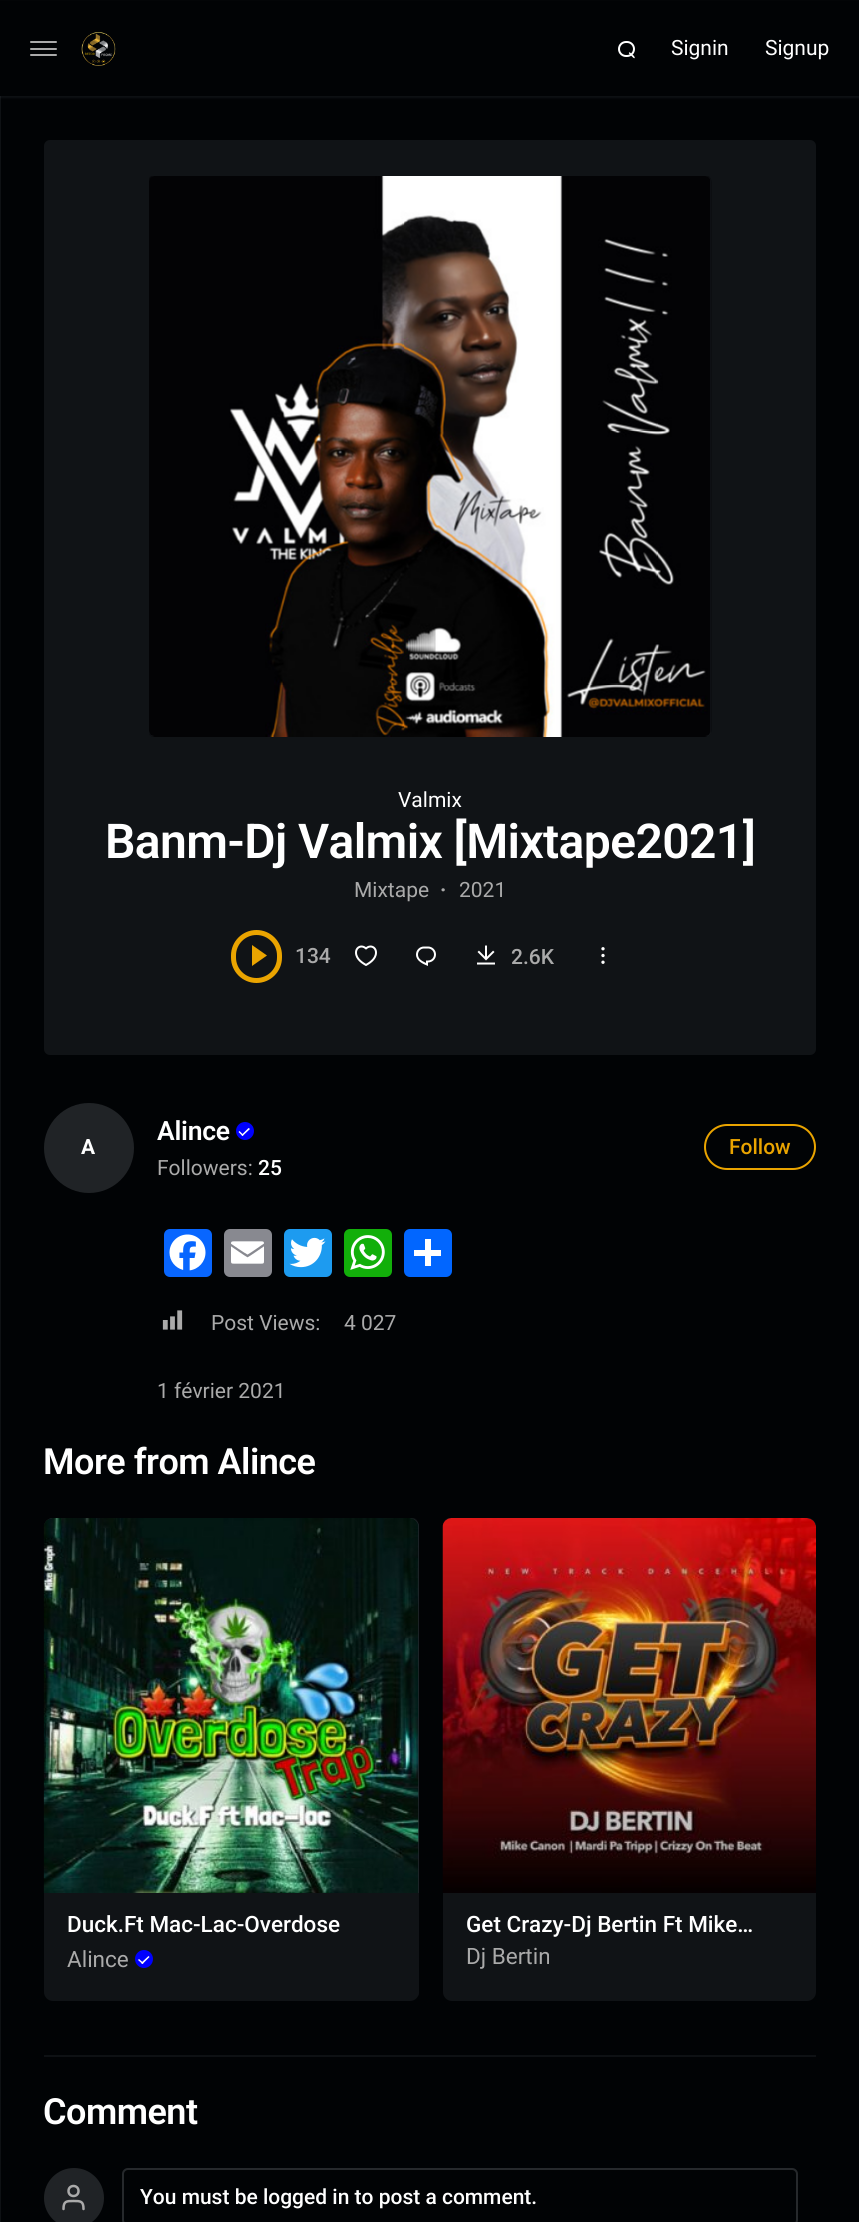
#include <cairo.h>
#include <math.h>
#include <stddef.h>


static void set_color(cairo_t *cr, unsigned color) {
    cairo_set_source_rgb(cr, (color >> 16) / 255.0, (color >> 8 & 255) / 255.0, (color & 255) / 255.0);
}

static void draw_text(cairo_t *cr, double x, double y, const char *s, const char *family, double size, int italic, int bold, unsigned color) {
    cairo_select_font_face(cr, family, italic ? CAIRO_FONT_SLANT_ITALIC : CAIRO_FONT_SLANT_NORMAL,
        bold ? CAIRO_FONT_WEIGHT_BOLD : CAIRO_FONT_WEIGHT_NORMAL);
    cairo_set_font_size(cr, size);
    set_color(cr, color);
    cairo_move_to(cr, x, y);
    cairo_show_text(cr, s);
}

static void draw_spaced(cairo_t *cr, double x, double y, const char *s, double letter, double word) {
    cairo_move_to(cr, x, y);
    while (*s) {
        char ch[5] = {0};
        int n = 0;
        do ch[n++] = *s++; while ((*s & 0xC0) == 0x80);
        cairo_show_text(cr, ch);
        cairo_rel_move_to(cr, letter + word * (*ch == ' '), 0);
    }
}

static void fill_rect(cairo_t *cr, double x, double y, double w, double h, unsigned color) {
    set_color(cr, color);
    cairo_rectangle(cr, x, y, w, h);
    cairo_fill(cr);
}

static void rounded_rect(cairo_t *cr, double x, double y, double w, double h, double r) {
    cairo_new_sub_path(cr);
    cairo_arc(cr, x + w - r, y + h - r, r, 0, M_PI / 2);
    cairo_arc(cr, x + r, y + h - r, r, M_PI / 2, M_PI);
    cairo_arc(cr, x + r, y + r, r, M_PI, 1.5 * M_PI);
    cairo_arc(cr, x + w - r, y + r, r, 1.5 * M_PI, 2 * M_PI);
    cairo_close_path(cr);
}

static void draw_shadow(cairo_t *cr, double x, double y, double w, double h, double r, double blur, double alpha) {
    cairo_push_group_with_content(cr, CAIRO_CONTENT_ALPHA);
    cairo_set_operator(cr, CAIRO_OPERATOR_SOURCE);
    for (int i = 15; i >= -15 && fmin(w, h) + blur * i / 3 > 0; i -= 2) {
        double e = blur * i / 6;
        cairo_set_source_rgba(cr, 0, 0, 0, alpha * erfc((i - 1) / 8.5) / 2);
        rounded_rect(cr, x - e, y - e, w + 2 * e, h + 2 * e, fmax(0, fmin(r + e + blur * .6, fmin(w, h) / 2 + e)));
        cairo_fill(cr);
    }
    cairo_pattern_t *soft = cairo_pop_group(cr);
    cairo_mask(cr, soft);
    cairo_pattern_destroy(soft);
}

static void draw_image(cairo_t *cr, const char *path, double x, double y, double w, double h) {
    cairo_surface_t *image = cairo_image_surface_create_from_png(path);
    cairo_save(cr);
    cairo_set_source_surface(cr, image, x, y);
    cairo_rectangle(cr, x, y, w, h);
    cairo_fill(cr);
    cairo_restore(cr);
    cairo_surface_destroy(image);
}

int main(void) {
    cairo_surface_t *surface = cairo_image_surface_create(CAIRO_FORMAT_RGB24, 859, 2222);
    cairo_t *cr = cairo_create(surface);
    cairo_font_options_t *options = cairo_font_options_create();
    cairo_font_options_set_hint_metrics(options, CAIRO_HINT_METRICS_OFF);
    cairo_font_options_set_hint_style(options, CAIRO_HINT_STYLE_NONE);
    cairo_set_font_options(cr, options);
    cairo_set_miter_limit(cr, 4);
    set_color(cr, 0x010305);
    cairo_paint(cr);
    fill_rect(cr, 0, 96, 1, 2126, 0x0E1114);
    set_color(cr, 0x828C96);
    draw_shadow(cr, 0, 2, 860, 96, 0, 1, 0.1);
    fill_rect(cr, 0, 1, 859, 95, 0x010305);
    set_color(cr, 0xAAAAAA);
    rounded_rect(cr, 30, 48, 27, 2, 1);
    cairo_fill(cr);
    rounded_rect(cr, 30, 41, 27, 2, 1);
    cairo_fill(cr);
    rounded_rect(cr, 30, 54, 27, 2, 1);
    cairo_fill(cr);
    draw_image(cr, "assets/img1.png", 81, 32, 35, 34);
    rounded_rect(cr, 619, 42, 15, 14, 7);
    set_color(cr, 0xFFFFFF);
    cairo_stroke(cr);
    cairo_new_path(cr);
    cairo_move_to(cr, 630, 52.5);
    cairo_line_to(cr, 634, 56);
    cairo_curve_to(cr, 635.5, 58, 634.5, 59, 633, 57.5);
    cairo_line_to(cr, 629, 53.5);
    cairo_curve_to(cr, 628.5, 52.5, 629.5, 52, 630, 52.5);
    cairo_close_path(cr);
    cairo_fill(cr);
    draw_text(cr, 671, 55, "Signin", "Roboto", 21, 0, 0, 0xFFFFFF);
    draw_text(cr, 765, 55, "Signup", "Roboto", 21, 0, 0, 0xFFFFFF);
    set_color(cr, 0x101316);
    rounded_rect(cr, 44, 140, 772, 915, 6);
    cairo_fill(cr);
    set_color(cr, 0x23272C);
    rounded_rect(cr, 149, 176, 562, 561, 6);
    cairo_fill(cr);
    draw_image(cr, "assets/img2.png", 149, 176, 563, 561);
    draw_text(cr, 398, 807, "Valmix", "Roboto", 21, 0, 0, 0xFFFFFF);
    cairo_select_font_face(cr, "Roboto SemiBold", CAIRO_FONT_SLANT_NORMAL, CAIRO_FONT_WEIGHT_NORMAL);
    cairo_set_font_size(cr, 48);
    draw_spaced(cr, 105, 858, "Banm-Dj Valmix [Mixtape2021]", -0.6, 0);
    draw_text(cr, 354, 897, "Mixtape", "Roboto", 21, 0, 0, 0xAAAAAA);
    draw_text(cr, 440, 897, "·", "Roboto", 21, 0, 1, 0xAAAAAA);
    draw_text(cr, 459, 897, "2021", "Roboto", 21, 0, 0, 0xAAAAAA);
    set_color(cr, 0xEAA400);
    cairo_new_path(cr);
    cairo_move_to(cr, 252, 966);
    cairo_line_to(cr, 252, 945);
    cairo_line_to(cr, 267, 955.5);
    cairo_close_path(cr);
    cairo_fill(cr);
    rounded_rect(cr, 233.5, 932.5, 46, 48, 23);
    cairo_set_line_width(cr, 5);
    cairo_stroke(cr);
    draw_text(cr, 295, 963, "134", "Roboto Medium", 21, 0, 0, 0xAAAAAA);
    draw_image(cr, "assets/img3.png", 355, 945, 22, 21);
    draw_image(cr, "assets/img4.png", 416, 946, 20, 20);
    draw_image(cr, "assets/img5.png", 477, 945, 18, 20);
    draw_text(cr, 511, 964, "2.6K", "Roboto Medium", 21, 0, 0, 0xAAAAAA);
    draw_image(cr, "assets/img6.png", 601, 947, 4, 17);
    set_color(cr, 0x202326);
    cairo_arc(cr, 89, 1148, 45, 0, 2 * M_PI);
    cairo_fill(cr);
    draw_text(cr, 81, 1154, "A", "Roboto", 21, 0, 1, 0xFFFFFF);
    cairo_select_font_face(cr, "Roboto SemiBold", CAIRO_FONT_SLANT_NORMAL, CAIRO_FONT_WEIGHT_NORMAL);
    cairo_set_font_size(cr, 26.5);
    draw_spaced(cr, 157, 1140, "Alince", -0.25, 0);
    set_color(cr, 0x0000FF);
    cairo_new_path(cr);
    cairo_arc(cr, 245, 1131, 9, 0, 2 * M_PI);
    cairo_fill(cr);
    set_color(cr, 0xFFFFFF);
    cairo_new_path(cr);
    cairo_move_to(cr, 241.5, 1135);
    cairo_line_to(cr, 248.5, 1128);
    cairo_line_to(cr, 250, 1129);
    cairo_line_to(cr, 242.5, 1136);
    cairo_close_path(cr);
    cairo_fill(cr);
    cairo_new_path(cr);
    cairo_move_to(cr, 238.5, 1132);
    cairo_line_to(cr, 239.5, 1131);
    cairo_line_to(cr, 243.5, 1135);
    cairo_line_to(cr, 242.5, 1136);
    cairo_close_path(cr);
    cairo_fill(cr);
    draw_text(cr, 157, 1175, "Followers:", "Roboto", 21, 0, 0, 0xAAAAAA);
    draw_text(cr, 258, 1175, "25", "Roboto Medium", 21, 0, 0, 0xFFFFFF);
    rounded_rect(cr, 705, 1125, 110, 44, 22);
    set_color(cr, 0xEAA400);
    cairo_set_line_width(cr, 2);
    cairo_stroke(cr);
    draw_text(cr, 729, 1154, "Follow", "Roboto Medium", 21, 0, 0, 0xEAA400);
    set_color(cr, 0x0866FF);
    rounded_rect(cr, 164, 1229, 48, 48, 6);
    cairo_fill(cr);
    draw_image(cr, "assets/img7.png", 169, 1234, 37, 37);
    set_color(cr, 0x888990);
    rounded_rect(cr, 224, 1229, 48, 48, 6);
    cairo_fill(cr);
    draw_image(cr, "assets/img8.png", 231, 1241, 33, 23);
    set_color(cr, 0x1D9BF0);
    rounded_rect(cr, 284, 1229, 48, 48, 6);
    cairo_fill(cr);
    draw_image(cr, "assets/img9.png", 289, 1237, 37, 31);
    set_color(cr, 0x12AF0A);
    rounded_rect(cr, 344, 1229, 48, 48, 6);
    cairo_fill(cr);
    draw_image(cr, "assets/img10.png", 350, 1235, 35, 35);
    set_color(cr, 0x0166FF);
    rounded_rect(cr, 404, 1229, 48, 48, 6);
    cairo_fill(cr);
    fill_rect(cr, 425, 1239, 6, 27, 0xFFFFFF);
    fill_rect(cr, 414, 1250, 27, 6, 0xFFFFFF);
    draw_image(cr, "assets/img11.png", 162, 1310, 21, 20);
    draw_text(cr, 211, 1330, "Post Views:", "Roboto", 21, 0, 0, 0xAAAAAA);
    draw_text(cr, 344, 1330, "4 027", "Roboto", 21, 0, 0, 0xAAAAAA);
    draw_text(cr, 157, 1398, "1 février 2021", "Roboto", 21, 0, 0, 0xAAAAAA);
    cairo_select_font_face(cr, "Roboto SemiBold", CAIRO_FONT_SLANT_NORMAL, CAIRO_FONT_WEIGHT_NORMAL);
    cairo_set_font_size(cr, 36);
    set_color(cr, 0xFFFFFF);
    draw_spaced(cr, 43, 1474, "More from Alince", -0.5, 0);
    set_color(cr, 0x0D1013);
    cairo_new_path(cr);
    cairo_move_to(cr, 418, 1996);
    cairo_curve_to(cr, 419, 1994, 419, 1993, 419, 1991);
    cairo_line_to(cr, 419, 1526);
    cairo_curve_to(cr, 419, 1523, 417, 1519, 414, 1518);
    cairo_line_to(cr, 410, 1518);
    cairo_curve_to(cr, 414, 1518, 418, 1522, 418, 1527);
    cairo_line_to(cr, 418, 1992);
    cairo_close_path(cr);
    cairo_fill(cr);
    set_color(cr, 0x101316);
    rounded_rect(cr, 44, 1518, 375, 483, 9);
    cairo_fill(cr);
    cairo_set_source_rgba(cr, 0.431, 0.471, 0.51, 0.2);
    cairo_new_path(cr);
    cairo_move_to(cr, 53, 1518);
    cairo_line_to(cr, 410, 1518);
    cairo_curve_to(cr, 415, 1518, 419, 1522, 419, 1527);
    cairo_line_to(cr, 419, 1893);
    cairo_line_to(cr, 44, 1893);
    cairo_line_to(cr, 44, 1527);
    cairo_curve_to(cr, 44, 1522, 48, 1518, 53, 1518);
    cairo_close_path(cr);
    cairo_fill(cr);
    draw_image(cr, "assets/img12.png", 43, 1518, 376, 375);
    draw_text(cr, 67, 1932, "Duck.Ft Mac-Lac-Overdose", "Roboto Medium", 22.5, 0, 0, 0xFFFFFF);
    draw_text(cr, 67, 1967, "Alince", "Roboto", 22.5, 0, 0, 0xAAAAAA);
    set_color(cr, 0x0000FF);
    cairo_new_path(cr);
    cairo_arc(cr, 144, 1959, 9, 0, 2 * M_PI);
    cairo_fill(cr);
    set_color(cr, 0xFFFFFF);
    cairo_new_path(cr);
    cairo_move_to(cr, 141, 1963);
    cairo_line_to(cr, 148.5, 1956);
    cairo_line_to(cr, 149.5, 1957);
    cairo_line_to(cr, 142.5, 1964);
    cairo_close_path(cr);
    cairo_fill(cr);
    cairo_new_path(cr);
    cairo_move_to(cr, 138, 1960);
    cairo_line_to(cr, 139, 1959);
    cairo_line_to(cr, 143.5, 1963);
    cairo_line_to(cr, 142.5, 1964);
    cairo_close_path(cr);
    cairo_fill(cr);
    set_color(cr, 0x0D1013);
    cairo_new_path(cr);
    cairo_move_to(cr, 451.5, 1518);
    cairo_line_to(cr, 448, 1518);
    cairo_curve_to(cr, 446, 1519, 444.5, 1520.5, 443.5, 1522.5);
    cairo_curve_to(cr, 445.5, 1520, 448, 1518, 451.5, 1518);
    cairo_close_path(cr);
    cairo_fill(cr);
    set_color(cr, 0x101316);
    rounded_rect(cr, 443, 1518, 373, 483, 9);
    cairo_fill(cr);
    cairo_set_source_rgba(cr, 0.431, 0.471, 0.51, 0.2);
    cairo_new_path(cr);
    cairo_move_to(cr, 452, 1518);
    cairo_line_to(cr, 807, 1518);
    cairo_curve_to(cr, 812, 1518, 816, 1522, 816, 1527);
    cairo_line_to(cr, 816, 1893);
    cairo_line_to(cr, 443, 1893);
    cairo_line_to(cr, 443, 1527);
    cairo_curve_to(cr, 443, 1522, 447, 1518, 452, 1518);
    cairo_close_path(cr);
    cairo_fill(cr);
    draw_image(cr, "assets/img13.png", 442, 1518, 374, 375);
    draw_text(cr, 466, 1932, "Get Crazy-Dj Bertin Ft Mike…", "Roboto Medium", 22.5, 0, 0, 0xFFFFFF);
    draw_text(cr, 466, 1964, "Dj Bertin", "Roboto", 22.5, 0, 0, 0xAAAAAA);
    fill_rect(cr, 44, 2055, 772, 2, 0x0E1114);
    cairo_select_font_face(cr, "Roboto SemiBold", CAIRO_FONT_SLANT_NORMAL, CAIRO_FONT_WEIGHT_NORMAL);
    cairo_set_font_size(cr, 36);
    set_color(cr, 0xFFFFFF);
    draw_spaced(cr, 43, 2124, "Comment", -0.5, 0);
    set_color(cr, 0x202326);
    cairo_new_path(cr);
    cairo_arc(cr, 74, 2198, 30, 0, 2 * M_PI);
    cairo_fill(cr);
    cairo_new_path(cr);
    cairo_move_to(cr, 83.5, 2209);
    cairo_curve_to(cr, 83.5, 2201, 80.5, 2201, 73.5, 2201);
    cairo_curve_to(cr, 66.5, 2201, 63.5, 2201, 63.5, 2209);
    set_color(cr, 0xAAAAAA);
    cairo_set_line_width(cr, 2.5);
    cairo_set_line_cap(cr, CAIRO_LINE_CAP_ROUND);
    cairo_set_line_join(cr, CAIRO_LINE_JOIN_ROUND);
    cairo_stroke(cr);
    cairo_arc(cr, 73.5, 2191, 5, 0, 2 * M_PI);
    cairo_set_line_cap(cr, CAIRO_LINE_CAP_BUTT);
    cairo_set_line_join(cr, CAIRO_LINE_JOIN_MITER);
    cairo_stroke(cr);
    rounded_rect(cr, 123, 2169, 674, 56, 5);
    set_color(cr, 0x26292C);
    cairo_set_line_width(cr, 2);
    cairo_stroke(cr);
    draw_text(cr, 140, 2204, "You must be logged in to post a comment.", "Roboto Medium", 21, 0, 0, 0xFFFFFF);
    cairo_surface_write_to_png(surface, "output.png");
    cairo_font_options_destroy(options);
    cairo_destroy(cr);
    cairo_surface_destroy(surface);
    return 0;
}
